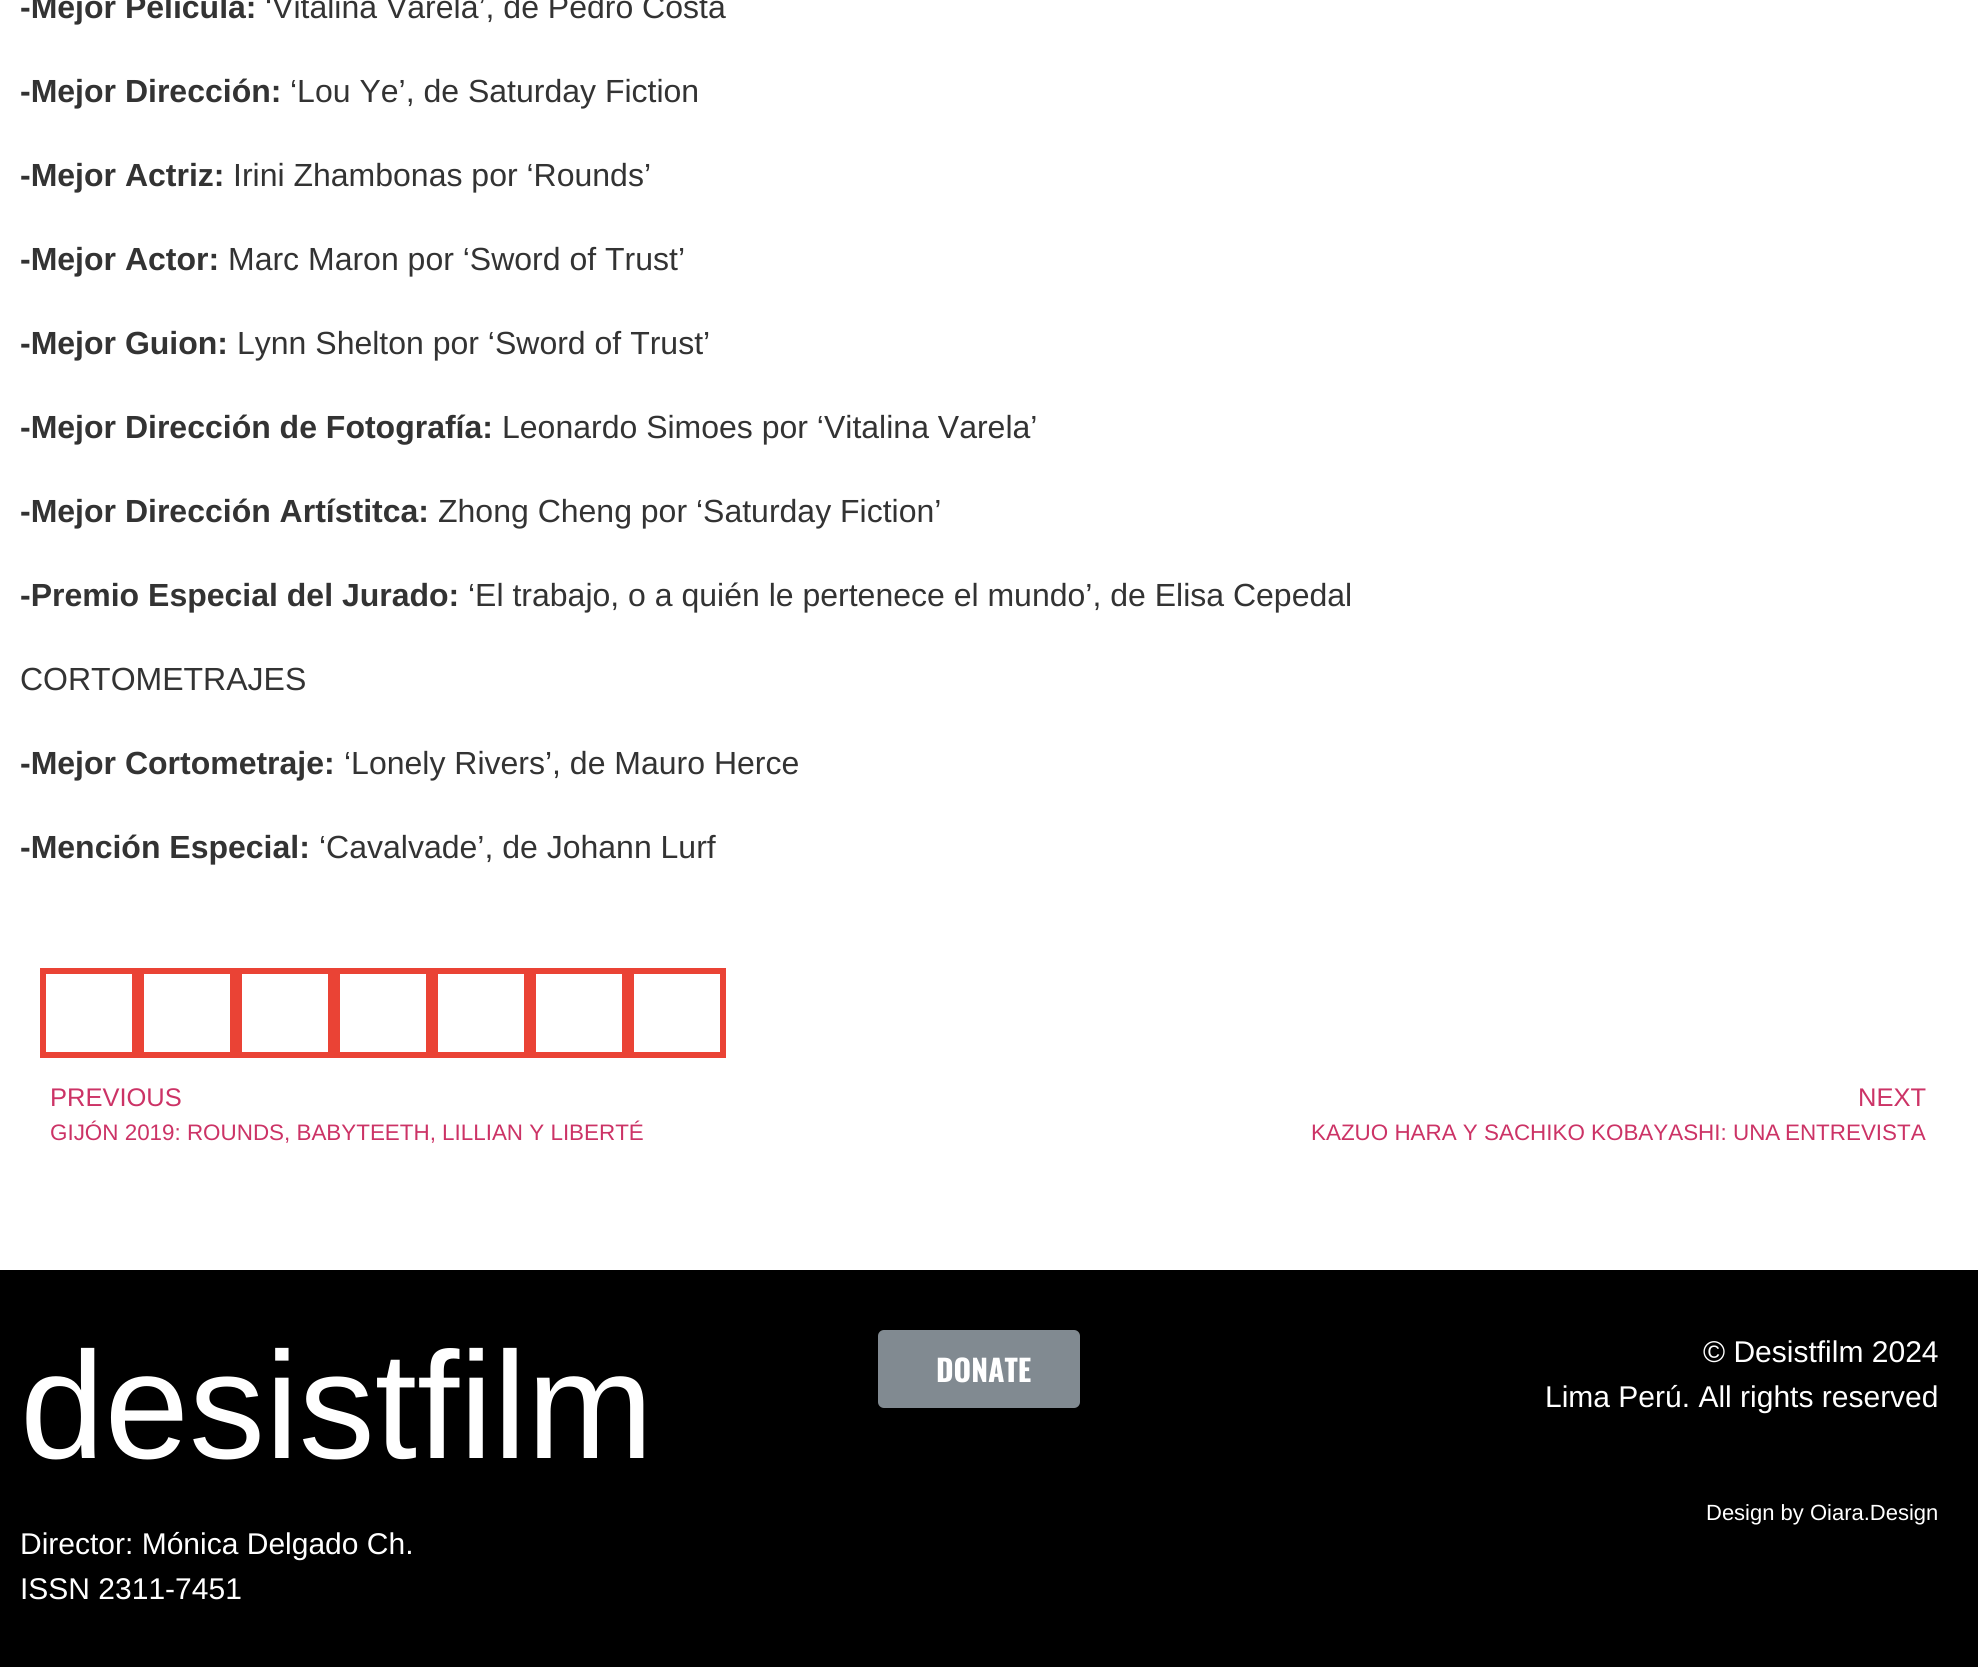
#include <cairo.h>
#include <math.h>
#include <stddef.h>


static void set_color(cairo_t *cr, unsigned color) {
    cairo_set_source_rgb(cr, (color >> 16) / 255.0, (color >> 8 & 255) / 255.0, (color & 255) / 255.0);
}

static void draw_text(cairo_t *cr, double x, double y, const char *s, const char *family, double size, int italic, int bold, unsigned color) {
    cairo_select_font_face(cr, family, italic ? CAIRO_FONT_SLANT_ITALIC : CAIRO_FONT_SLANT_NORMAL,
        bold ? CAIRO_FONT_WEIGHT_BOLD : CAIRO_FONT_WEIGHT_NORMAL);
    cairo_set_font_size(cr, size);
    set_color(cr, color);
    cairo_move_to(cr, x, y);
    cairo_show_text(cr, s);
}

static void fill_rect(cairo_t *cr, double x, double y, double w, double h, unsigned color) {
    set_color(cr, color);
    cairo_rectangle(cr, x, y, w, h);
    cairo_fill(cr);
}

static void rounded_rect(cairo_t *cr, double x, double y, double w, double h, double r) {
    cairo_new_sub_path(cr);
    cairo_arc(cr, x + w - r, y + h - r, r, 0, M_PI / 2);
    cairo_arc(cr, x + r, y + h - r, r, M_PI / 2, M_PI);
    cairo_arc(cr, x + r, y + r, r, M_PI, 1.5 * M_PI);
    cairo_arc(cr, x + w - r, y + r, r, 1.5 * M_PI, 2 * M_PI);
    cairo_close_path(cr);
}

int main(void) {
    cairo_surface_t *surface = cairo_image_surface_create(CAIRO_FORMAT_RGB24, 1978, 1667);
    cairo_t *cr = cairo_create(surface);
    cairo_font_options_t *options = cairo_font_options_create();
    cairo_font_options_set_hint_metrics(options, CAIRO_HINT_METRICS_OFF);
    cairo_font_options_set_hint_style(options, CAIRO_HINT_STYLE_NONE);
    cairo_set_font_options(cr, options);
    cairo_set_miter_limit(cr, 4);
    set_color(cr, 0xFFFFFF);
    cairo_paint(cr);
    draw_text(cr, 20, 18, "-Mejor Película:", "Liberation Sans", 32, 0, 1, 0x333333);
    draw_text(cr, 265, 18, "‘Vitalina Varela’, de Pedro Costa", "Liberation Sans", 32, 0, 0, 0x333333);
    draw_text(cr, 20, 102, "-Mejor Dirección:", "Liberation Sans", 32, 0, 1, 0x333333);
    draw_text(cr, 290, 102, "‘Lou Ye’, de Saturday Fiction", "Liberation Sans", 32, 0, 0, 0x333333);
    draw_text(cr, 20, 186, "-Mejor Actriz:", "Liberation Sans", 32, 0, 1, 0x333333);
    draw_text(cr, 233, 186, "Irini Zhambonas por ‘Rounds’", "Liberation Sans", 32, 0, 0, 0x333333);
    draw_text(cr, 20, 270, "-Mejor Actor:", "Liberation Sans", 32, 0, 1, 0x333333);
    draw_text(cr, 228, 270, "Marc Maron por ‘Sword of Trust’", "Liberation Sans", 32, 0, 0, 0x333333);
    draw_text(cr, 20, 354, "-Mejor Guion:", "Liberation Sans", 32, 0, 1, 0x333333);
    draw_text(cr, 237, 354, "Lynn Shelton por ‘Sword of Trust’", "Liberation Sans", 32, 0, 0, 0x333333);
    draw_text(cr, 20, 438, "-Mejor Dirección de Fotografía:", "Liberation Sans", 32, 0, 1, 0x333333);
    draw_text(cr, 502, 438, "Leonardo Simoes por ‘Vitalina Varela’", "Liberation Sans", 32, 0, 0, 0x333333);
    draw_text(cr, 20, 522, "-Mejor Dirección Artístitca:", "Liberation Sans", 32, 0, 1, 0x333333);
    draw_text(cr, 438, 522, "Zhong Cheng por ‘Saturday Fiction’", "Liberation Sans", 32, 0, 0, 0x333333);
    draw_text(cr, 20, 606, "-Premio Especial del Jurado:", "Liberation Sans", 32, 0, 1, 0x333333);
    draw_text(cr, 468, 606, "‘El trabajo, o a quién le pertenece el mundo’, de Elisa Cepedal", "Liberation Sans", 32, 0, 0, 0x333333);
    draw_text(cr, 20, 690, "CORTOMETRAJES", "Liberation Sans", 32, 0, 0, 0x333333);
    draw_text(cr, 20, 774, "-Mejor Cortometraje:", "Liberation Sans", 32, 0, 1, 0x333333);
    draw_text(cr, 344, 774, "‘Lonely Rivers’, de Mauro Herce", "Liberation Sans", 32, 0, 0, 0x333333);
    draw_text(cr, 20, 858, "-Mención Especial:", "Liberation Sans", 32, 0, 1, 0x333333);
    draw_text(cr, 319, 858, "‘Cavalvade’, de Johann Lurf", "Liberation Sans", 32, 0, 0, 0x333333);
    cairo_rectangle(cr, 43, 971, 92, 84);
    set_color(cr, 0xEA4335);
    cairo_set_line_width(cr, 6);
    cairo_stroke(cr);
    cairo_rectangle(cr, 141, 971, 92, 84);
    cairo_stroke(cr);
    cairo_rectangle(cr, 239, 971, 92, 84);
    cairo_stroke(cr);
    cairo_rectangle(cr, 337, 971, 92, 84);
    cairo_stroke(cr);
    cairo_rectangle(cr, 435, 971, 92, 84);
    cairo_stroke(cr);
    cairo_rectangle(cr, 533, 971, 92, 84);
    cairo_stroke(cr);
    cairo_rectangle(cr, 631, 971, 92, 84);
    cairo_stroke(cr);
    draw_text(cr, 50, 1106, "PREVIOUS", "Liberation Sans", 25.5, 0, 0, 0xCC3366);
    draw_text(cr, 50, 1140, "GIJÓN 2019: ROUNDS, BABYTEETH, LILLIAN Y LIBERTÉ", "Liberation Sans", 22.4, 0, 0, 0xCC3366);
    draw_text(cr, 1858, 1106, "NEXT", "Liberation Sans", 25.5, 0, 0, 0xCC3366);
    draw_text(cr, 1311, 1140, "KAZUO HARA Y SACHIKO KOBAYASHI: UNA", "Liberation Sans", 22.4, 0, 0, 0xCC3366);
    draw_text(cr, 1785, 1140, "ENTREVISTA", "Liberation Sans", 22.4, 0, 0, 0xCC3366);
    fill_rect(cr, 0, 1270, 1978, 397, 0x000000);
    draw_text(cr, 20, 1458, "desistfilm", "Liberation Sans", 152, 0, 0, 0xFFFFFF);
    draw_text(cr, 20, 1554, "Director: Mónica Delgado Ch.", "Liberation Sans", 30, 0, 0, 0xFFFFFF);
    draw_text(cr, 20, 1599, "ISSN 2311-7451", "Liberation Sans", 30, 0, 0, 0xFFFFFF);
    set_color(cr, 0x818A91);
    rounded_rect(cr, 878, 1330, 202, 78, 6);
    cairo_fill(cr);
    draw_text(cr, 936, 1382, "DONATE", "Oswald", 30, 0, 1, 0xFFFFFF);
    draw_text(cr, 1703, 1362, "© Desistfilm 2024", "Liberation Sans", 30, 0, 0, 0xFFFFFF);
    draw_text(cr, 1545, 1407, "Lima Perú. All rights reserved", "Liberation Sans", 30, 0, 0, 0xFFFFFF);
    draw_text(cr, 1706, 1520, "Design by Oiara.Design", "Liberation Sans", 22, 0, 0, 0xFFFFFF);
    cairo_surface_write_to_png(surface, "output.png");
    cairo_font_options_destroy(options);
    cairo_destroy(cr);
    cairo_surface_destroy(surface);
    return 0;
}
